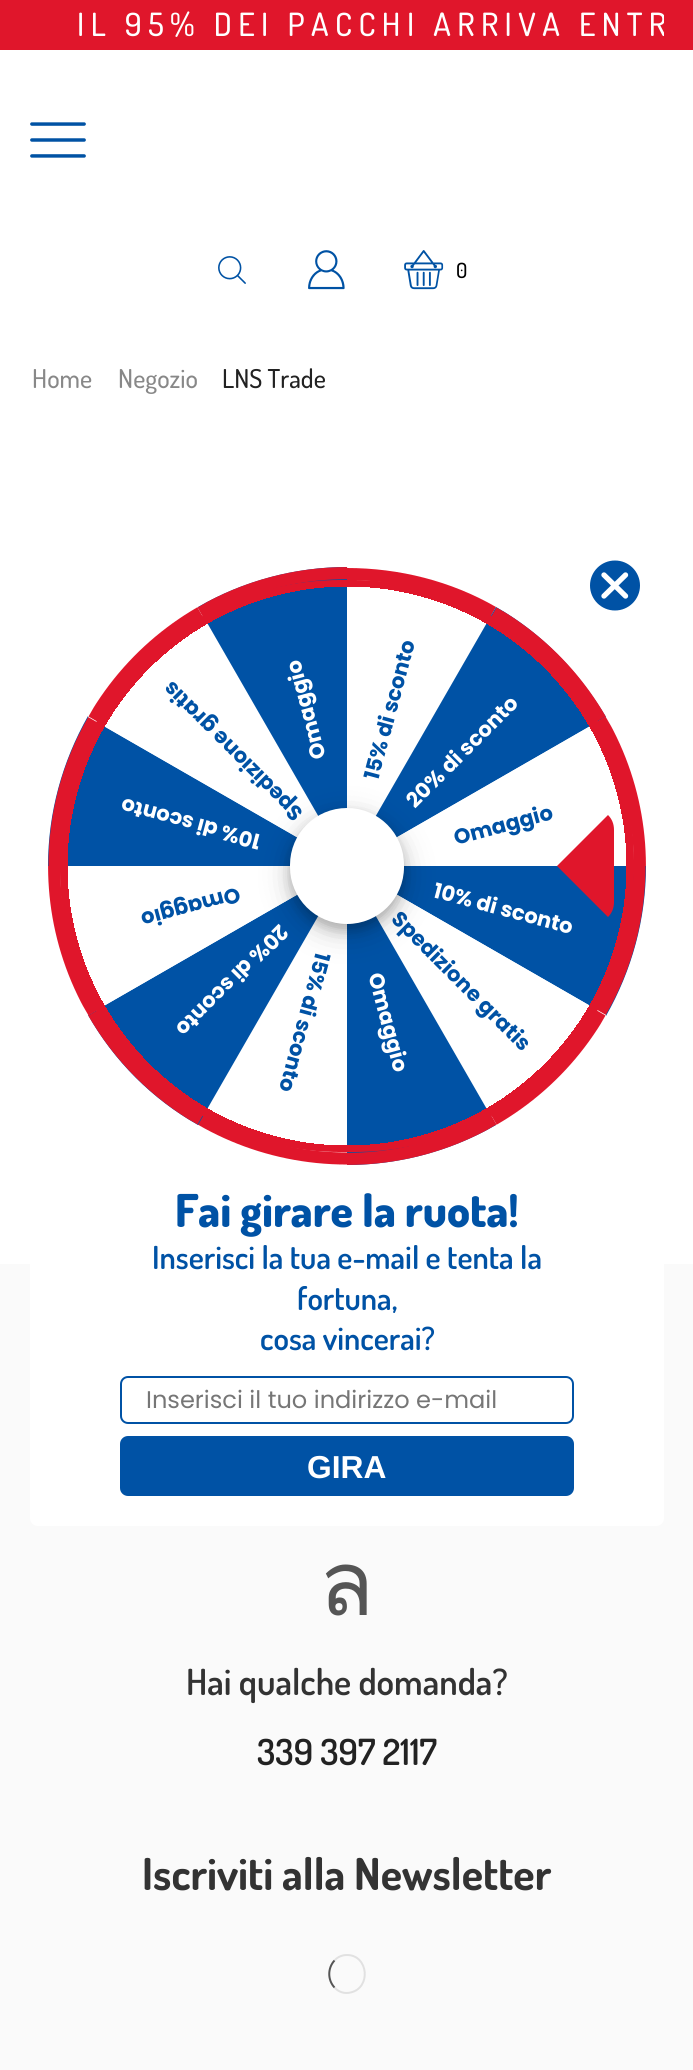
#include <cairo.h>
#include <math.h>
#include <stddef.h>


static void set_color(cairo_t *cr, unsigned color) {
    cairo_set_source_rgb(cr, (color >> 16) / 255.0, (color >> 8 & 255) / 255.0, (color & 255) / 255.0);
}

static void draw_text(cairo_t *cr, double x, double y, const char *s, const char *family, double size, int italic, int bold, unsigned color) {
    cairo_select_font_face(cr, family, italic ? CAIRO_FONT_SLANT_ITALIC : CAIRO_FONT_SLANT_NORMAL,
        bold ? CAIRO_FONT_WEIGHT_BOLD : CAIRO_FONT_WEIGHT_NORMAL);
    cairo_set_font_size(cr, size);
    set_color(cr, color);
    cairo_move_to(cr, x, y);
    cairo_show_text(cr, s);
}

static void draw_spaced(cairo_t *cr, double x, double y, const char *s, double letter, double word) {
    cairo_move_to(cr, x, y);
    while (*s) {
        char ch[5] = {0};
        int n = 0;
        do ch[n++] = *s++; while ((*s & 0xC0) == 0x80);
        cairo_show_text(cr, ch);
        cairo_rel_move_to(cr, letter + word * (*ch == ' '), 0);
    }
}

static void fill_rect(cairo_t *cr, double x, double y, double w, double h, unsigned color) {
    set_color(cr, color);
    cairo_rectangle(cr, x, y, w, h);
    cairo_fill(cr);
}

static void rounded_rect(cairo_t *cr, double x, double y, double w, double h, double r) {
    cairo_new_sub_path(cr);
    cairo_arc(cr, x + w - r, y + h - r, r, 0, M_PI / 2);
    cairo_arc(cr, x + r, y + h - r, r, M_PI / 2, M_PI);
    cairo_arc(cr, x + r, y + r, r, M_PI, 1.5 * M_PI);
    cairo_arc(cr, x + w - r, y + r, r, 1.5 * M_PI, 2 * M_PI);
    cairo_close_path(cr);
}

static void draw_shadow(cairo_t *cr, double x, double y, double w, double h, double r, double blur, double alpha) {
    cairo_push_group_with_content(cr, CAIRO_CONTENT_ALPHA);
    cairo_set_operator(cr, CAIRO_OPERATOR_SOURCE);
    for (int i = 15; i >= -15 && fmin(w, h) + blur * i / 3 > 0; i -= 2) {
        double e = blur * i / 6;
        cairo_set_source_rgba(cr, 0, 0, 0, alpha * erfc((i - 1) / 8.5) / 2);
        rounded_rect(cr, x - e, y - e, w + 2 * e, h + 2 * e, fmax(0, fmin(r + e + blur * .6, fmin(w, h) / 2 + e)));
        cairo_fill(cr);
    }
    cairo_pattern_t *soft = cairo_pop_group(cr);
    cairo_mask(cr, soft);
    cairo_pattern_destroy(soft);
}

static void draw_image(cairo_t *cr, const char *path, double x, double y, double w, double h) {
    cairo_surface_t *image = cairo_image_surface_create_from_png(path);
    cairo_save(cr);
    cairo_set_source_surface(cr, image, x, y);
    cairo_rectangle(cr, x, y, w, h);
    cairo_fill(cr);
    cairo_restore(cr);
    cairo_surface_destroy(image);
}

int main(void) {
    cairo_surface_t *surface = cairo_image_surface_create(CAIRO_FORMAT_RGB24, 693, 2070);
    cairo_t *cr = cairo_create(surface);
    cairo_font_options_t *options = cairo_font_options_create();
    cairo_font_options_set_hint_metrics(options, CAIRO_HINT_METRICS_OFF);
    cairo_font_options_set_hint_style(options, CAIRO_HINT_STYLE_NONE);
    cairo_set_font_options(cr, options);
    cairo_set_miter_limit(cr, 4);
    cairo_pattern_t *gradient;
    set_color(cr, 0xFFFFFF);
    cairo_paint(cr);
    fill_rect(cr, 0, 0, 693, 50, 0xE0162B);
    cairo_save(cr);
    cairo_rectangle(cr, 30, 2, 634, 46);
    cairo_clip(cr);
    cairo_select_font_face(cr, "Dosis Medium", CAIRO_FONT_SLANT_NORMAL, CAIRO_FONT_WEIGHT_NORMAL);
    cairo_set_font_size(cr, 32);
    set_color(cr, 0xFFFFFF);
    draw_spaced(cr, 77, 36, "IL 95% DEI PACCHI ARRIVA ENTR", 6.4, 0);
    cairo_restore(cr);
    draw_image(cr, "assets/img1.png", 30, 122, 56, 36);
    draw_image(cr, "assets/img2.png", 218, 256, 28, 28);
    draw_image(cr, "assets/img3.png", 308, 250, 37, 40);
    draw_image(cr, "assets/img4.png", 404, 250, 40, 40);
    draw_text(cr, 456, 278, "0", "Dosis Medium", 21, 0, 0, 0x000000);
    draw_text(cr, 32, 388, "Home", "Dosis Medium", 26, 0, 0, 0x888888);
    draw_text(cr, 118, 388, "Negozio", "Dosis Medium", 26, 0, 0, 0x888888);
    draw_text(cr, 222, 388, "LNS Trade", "Dosis Medium", 26, 0, 0, 0x222222);
    fill_rect(cr, 0, 1264, 693, 806, 0xFAFAFA);
    draw_text(cr, 319, 1615, "ล", "Loma", 90, 0, 0, 0x555555);
    draw_text(cr, 186, 1695, "Hai qualche domanda?", "Dosis SemiBold", 36, 0, 0, 0x333333);
    draw_text(cr, 257, 1765, "339 397 2117", "Dosis SemiBold", 36, 0, 0, 0x222222);
    draw_text(cr, 142, 1890, "Iscriviti alla Newsletter", "Dosis", 44, 0, 1, 0x333333);
    cairo_new_path(cr);
    cairo_move_to(cr, 334.5, 1960.5);
    cairo_curve_to(cr, 337.5, 1957, 342, 1955, 347, 1955);
    cairo_curve_to(cr, 368.5, 1955, 371.5, 1988, 350.5, 1992.5);
    cairo_curve_to(cr, 344.5, 1994, 338.5, 1992, 334.5, 1987.5);
    set_color(cr, 0xE1E1E1);
    cairo_stroke(cr);
    cairo_new_path(cr);
    cairo_move_to(cr, 334.5, 1987.5);
    cairo_curve_to(cr, 327.5, 1980, 327.5, 1968, 334.5, 1960.5);
    set_color(cr, 0x555555);
    cairo_stroke(cr);
    set_color(cr, 0xFFFFFF);
    rounded_rect(cr, 30, 544, 634, 982, 8);
    cairo_fill(cr);
    set_color(cr, 0xE0162B);
    cairo_new_path(cr);
    cairo_move_to(cr, 347, 580);
    cairo_curve_to(cr, 397, 580, 447, 593, 490, 618);
    cairo_line_to(cr, 496, 607);
    cairo_curve_to(cr, 451, 581, 399, 568, 347, 568);
    cairo_close_path(cr);
    cairo_fill(cr);
    set_color(cr, 0x0052A5);
    cairo_new_path(cr);
    cairo_move_to(cr, 347, 866);
    cairo_line_to(cr, 496, 607);
    cairo_curve_to(cr, 542, 633, 579, 672, 606, 717);
    cairo_close_path(cr);
    cairo_fill(cr);
    cairo_save(cr);
    cairo_new_path(cr);
    cairo_move_to(cr, 347, 866);
    cairo_line_to(cr, 496.5, 607.5);
    cairo_line_to(cr, 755, 756.5);
    cairo_line_to(cr, 605.5, 716.5);
    cairo_close_path(cr);
    cairo_clip(cr);
    cairo_new_path(cr);
    cairo_move_to(cr, 493.5, 612.5);
    cairo_curve_to(cr, 633.5, 693.5, 681.5, 872.5, 600.5, 1012.5);
    cairo_curve_to(cr, 519.5, 1152.5, 340.5, 1200.5, 200.5, 1119.5);
    cairo_curve_to(cr, 60.5, 1038.5, 12.5, 859.5, 93.5, 719.5);
    cairo_curve_to(cr, 174.5, 579.5, 353.5, 531.5, 493.5, 612.5);
    cairo_close_path(cr);
    set_color(cr, 0xE0162B);
    cairo_set_line_width(cr, 12.1);
    cairo_stroke(cr);
    cairo_restore(cr);
    cairo_save(cr);
    cairo_translate(cr, 378, 781);
    cairo_rotate(cr, -75 * M_PI / 180);
    draw_text(cr, 0, 0, "15% di sconto", "Poppins", 21.1, 0, 1, 0x0052A5);
    cairo_restore(cr);
    set_color(cr, 0xFFFFFF);
    cairo_new_path(cr);
    cairo_move_to(cr, 347, 866);
    cairo_line_to(cr, 606, 717);
    cairo_curve_to(cr, 632, 762, 646, 814, 646, 866);
    cairo_close_path(cr);
    cairo_fill(cr);
    cairo_save(cr);
    cairo_new_path(cr);
    cairo_move_to(cr, 347, 866);
    cairo_line_to(cr, 605.5, 716.5);
    cairo_line_to(cr, 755, 975.5);
    cairo_line_to(cr, 645.5, 866);
    cairo_close_path(cr);
    cairo_clip(cr);
    cairo_new_path(cr);
    cairo_move_to(cr, 600.5, 719.5);
    cairo_curve_to(cr, 681.5, 859.5, 633.5, 1038.5, 493.5, 1119.5);
    cairo_curve_to(cr, 353.5, 1200.5, 174.5, 1152.5, 93.5, 1012.5);
    cairo_curve_to(cr, 12.5, 872.5, 60.5, 693.5, 200.5, 612.5);
    cairo_curve_to(cr, 340.5, 531.5, 519.5, 579.5, 600.5, 719.5);
    cairo_close_path(cr);
    set_color(cr, 0xE0162B);
    cairo_set_line_width(cr, 12.1);
    cairo_stroke(cr);
    cairo_restore(cr);
    set_color(cr, 0x0052A5);
    cairo_new_path(cr);
    cairo_move_to(cr, 347, 866);
    cairo_line_to(cr, 646, 866);
    cairo_curve_to(cr, 646, 919, 632, 970, 606, 1016);
    cairo_line_to(cr, 606, 1015);
    cairo_close_path(cr);
    cairo_fill(cr);
    cairo_save(cr);
    cairo_translate(cr, 432, 897);
    cairo_rotate(cr, 15 * M_PI / 180);
    draw_text(cr, 0, 0, "10% di sconto", "Poppins", 21.1, 0, 1, 0xFFFFFF);
    cairo_restore(cr);
    cairo_save(cr);
    cairo_new_path(cr);
    cairo_move_to(cr, 347, 866);
    cairo_line_to(cr, 645.5, 866);
    cairo_line_to(cr, 645.5, 1164.5);
    cairo_line_to(cr, 605.5, 1015.5);
    cairo_close_path(cr);
    cairo_clip(cr);
    cairo_new_path(cr);
    cairo_move_to(cr, 639.5, 866);
    cairo_curve_to(cr, 639.5, 1027.5, 508.5, 1158.5, 347, 1158.5);
    cairo_curve_to(cr, 185.5, 1158.5, 54.5, 1027.5, 54.5, 866);
    cairo_curve_to(cr, 54.5, 704.5, 185.5, 573.5, 347, 573.5);
    cairo_curve_to(cr, 508.5, 573.5, 639.5, 704.5, 639.5, 866);
    cairo_close_path(cr);
    set_color(cr, 0xE0162B);
    cairo_set_line_width(cr, 12.1);
    cairo_stroke(cr);
    cairo_restore(cr);
    set_color(cr, 0xFFFFFF);
    cairo_new_path(cr);
    cairo_move_to(cr, 347, 866);
    cairo_line_to(cr, 606, 1015);
    cairo_curve_to(cr, 580, 1061, 542, 1099, 496, 1125);
    cairo_close_path(cr);
    cairo_fill(cr);
    cairo_save(cr);
    cairo_new_path(cr);
    cairo_move_to(cr, 347, 866);
    cairo_line_to(cr, 605.5, 1015.5);
    cairo_line_to(cr, 456.5, 1274);
    cairo_line_to(cr, 496.5, 1124.5);
    cairo_close_path(cr);
    cairo_clip(cr);
    cairo_new_path(cr);
    cairo_move_to(cr, 600.5, 1012.5);
    cairo_curve_to(cr, 519.5, 1152.5, 340.5, 1200.5, 200.5, 1119.5);
    cairo_curve_to(cr, 60.5, 1038.5, 12.5, 859.5, 93.5, 719.5);
    cairo_curve_to(cr, 174.5, 579.5, 353.5, 531.5, 493.5, 612.5);
    cairo_curve_to(cr, 633.5, 693.5, 681.5, 872.5, 600.5, 1012.5);
    cairo_close_path(cr);
    set_color(cr, 0xE0162B);
    cairo_set_line_width(cr, 12.1);
    cairo_stroke(cr);
    cairo_restore(cr);
    set_color(cr, 0x0052A5);
    cairo_new_path(cr);
    cairo_move_to(cr, 347, 866);
    cairo_line_to(cr, 496, 1125);
    cairo_curve_to(cr, 451, 1151, 399, 1165, 347, 1165);
    cairo_close_path(cr);
    cairo_fill(cr);
    cairo_save(cr);
    cairo_new_path(cr);
    cairo_move_to(cr, 347, 866);
    cairo_line_to(cr, 496.5, 1124.5);
    cairo_line_to(cr, 237.5, 1274);
    cairo_line_to(cr, 347, 1164.5);
    cairo_close_path(cr);
    cairo_clip(cr);
    cairo_new_path(cr);
    cairo_move_to(cr, 493.5, 1119.5);
    cairo_curve_to(cr, 353.5, 1200.5, 174.5, 1152.5, 93.5, 1012.5);
    cairo_curve_to(cr, 12.5, 872.5, 60.5, 693.5, 200.5, 612.5);
    cairo_curve_to(cr, 340.5, 531.5, 519.5, 579.5, 600.5, 719.5);
    cairo_curve_to(cr, 681.5, 859.5, 633.5, 1038.5, 493.5, 1119.5);
    cairo_close_path(cr);
    set_color(cr, 0xE0162B);
    cairo_set_line_width(cr, 12.1);
    cairo_stroke(cr);
    cairo_restore(cr);
    set_color(cr, 0xFFFFFF);
    cairo_new_path(cr);
    cairo_move_to(cr, 347, 866);
    cairo_line_to(cr, 347, 1165);
    cairo_curve_to(cr, 294, 1165, 243, 1151, 197, 1125);
    cairo_line_to(cr, 198, 1125);
    cairo_close_path(cr);
    cairo_fill(cr);
    cairo_save(cr);
    cairo_new_path(cr);
    cairo_move_to(cr, 347, 866);
    cairo_line_to(cr, 347, 1164.5);
    cairo_line_to(cr, 48.5, 1164.5);
    cairo_line_to(cr, 197.5, 1124.5);
    cairo_close_path(cr);
    cairo_clip(cr);
    cairo_new_path(cr);
    cairo_move_to(cr, 347, 1158.5);
    cairo_curve_to(cr, 185.5, 1158.5, 54.5, 1027.5, 54.5, 866);
    cairo_curve_to(cr, 54.5, 704.5, 185.5, 573.5, 347, 573.5);
    cairo_curve_to(cr, 508.5, 573.5, 639.5, 704.5, 639.5, 866);
    cairo_curve_to(cr, 639.5, 1027.5, 508.5, 1158.5, 347, 1158.5);
    cairo_close_path(cr);
    set_color(cr, 0xE0162B);
    cairo_set_line_width(cr, 12.1);
    cairo_stroke(cr);
    cairo_restore(cr);
    set_color(cr, 0x0052A5);
    cairo_new_path(cr);
    cairo_move_to(cr, 347, 866);
    cairo_line_to(cr, 198, 1125);
    cairo_curve_to(cr, 152, 1099, 114, 1061, 88, 1015);
    cairo_close_path(cr);
    cairo_fill(cr);
    cairo_save(cr);
    cairo_new_path(cr);
    cairo_move_to(cr, 347, 866);
    cairo_line_to(cr, 197.5, 1124.5);
    cairo_line_to(cr, -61, 975.5);
    cairo_line_to(cr, 88.5, 1015.5);
    cairo_close_path(cr);
    cairo_clip(cr);
    cairo_new_path(cr);
    cairo_move_to(cr, 200.5, 1119.5);
    cairo_curve_to(cr, 60.5, 1038.5, 12.5, 859.5, 93.5, 719.5);
    cairo_curve_to(cr, 174.5, 579.5, 353.5, 531.5, 493.5, 612.5);
    cairo_curve_to(cr, 633.5, 693.5, 681.5, 872.5, 600.5, 1012.5);
    cairo_curve_to(cr, 519.5, 1152.5, 340.5, 1200.5, 200.5, 1119.5);
    cairo_close_path(cr);
    set_color(cr, 0xE0162B);
    cairo_set_line_width(cr, 12.1);
    cairo_stroke(cr);
    cairo_restore(cr);
    cairo_save(cr);
    cairo_translate(cr, 316, 951);
    cairo_rotate(cr, 105 * M_PI / 180);
    draw_text(cr, 0, 0, "15% di sconto", "Poppins", 21.1, 0, 1, 0x0052A5);
    cairo_restore(cr);
    set_color(cr, 0xFFFFFF);
    cairo_new_path(cr);
    cairo_move_to(cr, 347, 866);
    cairo_line_to(cr, 88, 1015);
    cairo_curve_to(cr, 62, 970, 48, 918, 48, 866);
    cairo_close_path(cr);
    cairo_fill(cr);
    cairo_save(cr);
    cairo_new_path(cr);
    cairo_move_to(cr, 347, 866);
    cairo_line_to(cr, 88.5, 1015.5);
    cairo_line_to(cr, -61, 756.5);
    cairo_line_to(cr, 48.5, 866);
    cairo_close_path(cr);
    cairo_clip(cr);
    cairo_new_path(cr);
    cairo_move_to(cr, 93.5, 1012.5);
    cairo_curve_to(cr, 12.5, 872.5, 60.5, 693.5, 200.5, 612.5);
    cairo_curve_to(cr, 340.5, 531.5, 519.5, 579.5, 600.5, 719.5);
    cairo_curve_to(cr, 681.5, 859.5, 633.5, 1038.5, 493.5, 1119.5);
    cairo_curve_to(cr, 353.5, 1200.5, 174.5, 1152.5, 93.5, 1012.5);
    cairo_close_path(cr);
    set_color(cr, 0xE0162B);
    cairo_set_line_width(cr, 12.1);
    cairo_stroke(cr);
    cairo_restore(cr);
    set_color(cr, 0x0052A5);
    cairo_new_path(cr);
    cairo_move_to(cr, 347, 866);
    cairo_line_to(cr, 48, 866);
    cairo_curve_to(cr, 48, 813, 62, 762, 88, 716);
    cairo_line_to(cr, 88, 717);
    cairo_close_path(cr);
    cairo_fill(cr);
    cairo_save(cr);
    cairo_new_path(cr);
    cairo_move_to(cr, 347, 866);
    cairo_line_to(cr, 48.5, 866);
    cairo_line_to(cr, 48.5, 567.5);
    cairo_line_to(cr, 88.5, 716.5);
    cairo_close_path(cr);
    cairo_clip(cr);
    cairo_new_path(cr);
    cairo_move_to(cr, 54.5, 866);
    cairo_curve_to(cr, 54.5, 704.5, 185.5, 573.5, 347, 573.5);
    cairo_curve_to(cr, 508.5, 573.5, 639.5, 704.5, 639.5, 866);
    cairo_curve_to(cr, 639.5, 1027.5, 508.5, 1158.5, 347, 1158.5);
    cairo_curve_to(cr, 185.5, 1158.5, 54.5, 1027.5, 54.5, 866);
    cairo_close_path(cr);
    set_color(cr, 0xE0162B);
    cairo_set_line_width(cr, 12.1);
    cairo_stroke(cr);
    cairo_restore(cr);
    set_color(cr, 0xFFFFFF);
    cairo_new_path(cr);
    cairo_move_to(cr, 347, 866);
    cairo_line_to(cr, 198, 607);
    cairo_curve_to(cr, 152, 633, 114, 671, 88, 717);
    cairo_close_path(cr);
    cairo_fill(cr);
    cairo_save(cr);
    cairo_new_path(cr);
    cairo_move_to(cr, 347, 866);
    cairo_line_to(cr, 88.5, 716.5);
    cairo_line_to(cr, 237.5, 458);
    cairo_line_to(cr, 197.5, 607.5);
    cairo_close_path(cr);
    cairo_clip(cr);
    cairo_new_path(cr);
    cairo_move_to(cr, 93.5, 719.5);
    cairo_curve_to(cr, 174.5, 579.5, 353.5, 531.5, 493.5, 612.5);
    cairo_curve_to(cr, 633.5, 693.5, 681.5, 872.5, 600.5, 1012.5);
    cairo_curve_to(cr, 519.5, 1152.5, 340.5, 1200.5, 200.5, 1119.5);
    cairo_curve_to(cr, 60.5, 1038.5, 12.5, 859.5, 93.5, 719.5);
    cairo_close_path(cr);
    set_color(cr, 0xE0162B);
    cairo_set_line_width(cr, 12.1);
    cairo_stroke(cr);
    cairo_restore(cr);
    cairo_save(cr);
    cairo_translate(cr, 262, 835);
    cairo_rotate(cr, -165 * M_PI / 180);
    draw_text(cr, 0, 0, "10% di sconto", "Poppins", 21.1, 0, 1, 0xFFFFFF);
    cairo_restore(cr);
    cairo_save(cr);
    cairo_translate(cr, 304, 812);
    cairo_rotate(cr, -135 * M_PI / 180);
    draw_text(cr, 0, 0, "Spedizione gratis", "Poppins", 21.1, 0, 1, 0x0052A5);
    cairo_restore(cr);
    set_color(cr, 0x0052A5);
    cairo_new_path(cr);
    cairo_move_to(cr, 347, 866);
    cairo_line_to(cr, 347, 567);
    cairo_curve_to(cr, 295, 567, 243, 581, 198, 607);
    cairo_close_path(cr);
    cairo_fill(cr);
    cairo_save(cr);
    cairo_new_path(cr);
    cairo_move_to(cr, 347, 866);
    cairo_line_to(cr, 197.5, 607.5);
    cairo_line_to(cr, 456.5, 458);
    cairo_line_to(cr, 347, 567.5);
    cairo_close_path(cr);
    cairo_clip(cr);
    cairo_new_path(cr);
    cairo_move_to(cr, 200.5, 612.5);
    cairo_curve_to(cr, 340.5, 531.5, 519.5, 579.5, 600.5, 719.5);
    cairo_curve_to(cr, 681.5, 859.5, 633.5, 1038.5, 493.5, 1119.5);
    cairo_curve_to(cr, 353.5, 1200.5, 174.5, 1152.5, 93.5, 1012.5);
    cairo_curve_to(cr, 12.5, 872.5, 60.5, 693.5, 200.5, 612.5);
    cairo_close_path(cr);
    set_color(cr, 0xE0162B);
    cairo_set_line_width(cr, 12.1);
    cairo_stroke(cr);
    cairo_restore(cr);
    cairo_save(cr);
    cairo_translate(cr, 326, 757);
    cairo_rotate(cr, -105 * M_PI / 180);
    draw_text(cr, 0, 0, "Omaggio", "Poppins", 21.1, 0, 1, 0xFFFFFF);
    cairo_restore(cr);
    cairo_save(cr);
    cairo_translate(cr, 415, 809);
    cairo_rotate(cr, -45 * M_PI / 180);
    draw_text(cr, 0, 0, "20% di sconto", "Poppins", 21.1, 0, 1, 0xFFFFFF);
    cairo_restore(cr);
    cairo_save(cr);
    cairo_translate(cr, 456, 845);
    cairo_rotate(cr, -15 * M_PI / 180);
    draw_text(cr, 0, 0, "Omaggio", "Poppins", 21.1, 0, 1, 0x0052A5);
    cairo_restore(cr);
    cairo_save(cr);
    cairo_translate(cr, 238, 887);
    cairo_rotate(cr, 165 * M_PI / 180);
    draw_text(cr, 0, 0, "Omaggio", "Poppins", 21.1, 0, 1, 0x0052A5);
    cairo_restore(cr);
    cairo_save(cr);
    cairo_translate(cr, 279, 923);
    cairo_rotate(cr, 135 * M_PI / 180);
    draw_text(cr, 0, 0, "20% di sconto", "Poppins", 21.1, 0, 1, 0xFFFFFF);
    cairo_restore(cr);
    cairo_save(cr);
    cairo_translate(cr, 390, 920);
    cairo_rotate(cr, 45 * M_PI / 180);
    draw_text(cr, 0, 0, "Spedizione gratis", "Poppins", 21.1, 0, 1, 0x0052A5);
    cairo_restore(cr);
    cairo_save(cr);
    cairo_translate(cr, 368, 975);
    cairo_rotate(cr, 75 * M_PI / 180);
    draw_text(cr, 0, 0, "Omaggio", "Poppins", 21.1, 0, 1, 0xFFFFFF);
    cairo_restore(cr);
    set_color(cr, 0x000000);
    draw_shadow(cr, 290, 818, 114, 114, 57, 15, 0.2);
    draw_shadow(cr, 290, 814, 114, 116, 57, 6, 0.2);
    set_color(cr, 0xFFFFFF);
    rounded_rect(cr, 290, 808, 114, 116, 57);
    cairo_fill(cr);
    set_color(cr, 0xE0162B);
    cairo_new_path(cr);
    cairo_move_to(cr, 608, 815);
    cairo_curve_to(cr, 612, 819, 614, 824, 614, 830);
    cairo_line_to(cr, 614, 902);
    cairo_curve_to(cr, 614, 908, 612, 913, 608, 917);
    cairo_line_to(cr, 557, 866);
    cairo_close_path(cr);
    cairo_fill(cr);
    gradient = cairo_pattern_create_radial(347, 866, 0, 347, 866, 405);
    cairo_pattern_add_color_stop_rgba(gradient, 0.69, 0.878, 0.086, 0.169, 0);
    cairo_pattern_add_color_stop_rgba(gradient, 0.69, 0.878, 0.086, 0.169, 1);
    cairo_set_source(cr, gradient);
    cairo_pattern_destroy(gradient);
    rounded_rect(cr, 60, 580, 574, 572, 280);
    cairo_fill(cr);
    set_color(cr, 0x0052A5);
    cairo_arc(cr, 615, 585.5, 25, 0, 2 * M_PI);
    cairo_fill(cr);
    cairo_new_path(cr);
    cairo_move_to(cr, 604, 575);
    cairo_line_to(cr, 625.5, 596);
    cairo_move_to(cr, 604, 596);
    cairo_line_to(cr, 625.5, 575);
    cairo_close_path(cr);
    set_color(cr, 0xFFFFFF);
    cairo_set_line_width(cr, 5.3);
    cairo_set_line_cap(cr, CAIRO_LINE_CAP_ROUND);
    cairo_set_line_join(cr, CAIRO_LINE_JOIN_ROUND);
    cairo_stroke(cr);
    draw_text(cr, 175, 1227, "Fai girare la ruota!", "Dosis ExtraBold", 45.25, 0, 0, 0x0052A5);
    draw_text(cr, 152, 1269, "Inserisci la tua e-mail e tenta la", "Dosis SemiBold", 31.75, 0, 0, 0x0052A5);
    draw_text(cr, 297, 1310, "fortuna,", "Dosis SemiBold", 31.75, 0, 0, 0x0052A5);
    draw_text(cr, 260, 1350, "cosa vincerai?", "Dosis SemiBold", 31.75, 0, 0, 0x0052A5);
    rounded_rect(cr, 121, 1377, 452, 46, 7);
    cairo_set_line_width(cr, 2);
    cairo_set_line_cap(cr, CAIRO_LINE_CAP_BUTT);
    cairo_set_line_join(cr, CAIRO_LINE_JOIN_MITER);
    cairo_stroke(cr);
    draw_text(cr, 146, 1408, "Inserisci il tuo indirizzo e-mail", "Poppins", 24.1, 0, 0, 0x767676);
    set_color(cr, 0x0052A5);
    rounded_rect(cr, 120, 1436, 454, 60, 8);
    cairo_fill(cr);
    draw_text(cr, 307, 1478, "GIRA", "Liberation Sans", 31.75, 0, 1, 0xFFFFFF);
    cairo_surface_write_to_png(surface, "output.png");
    cairo_font_options_destroy(options);
    cairo_destroy(cr);
    cairo_surface_destroy(surface);
    return 0;
}
